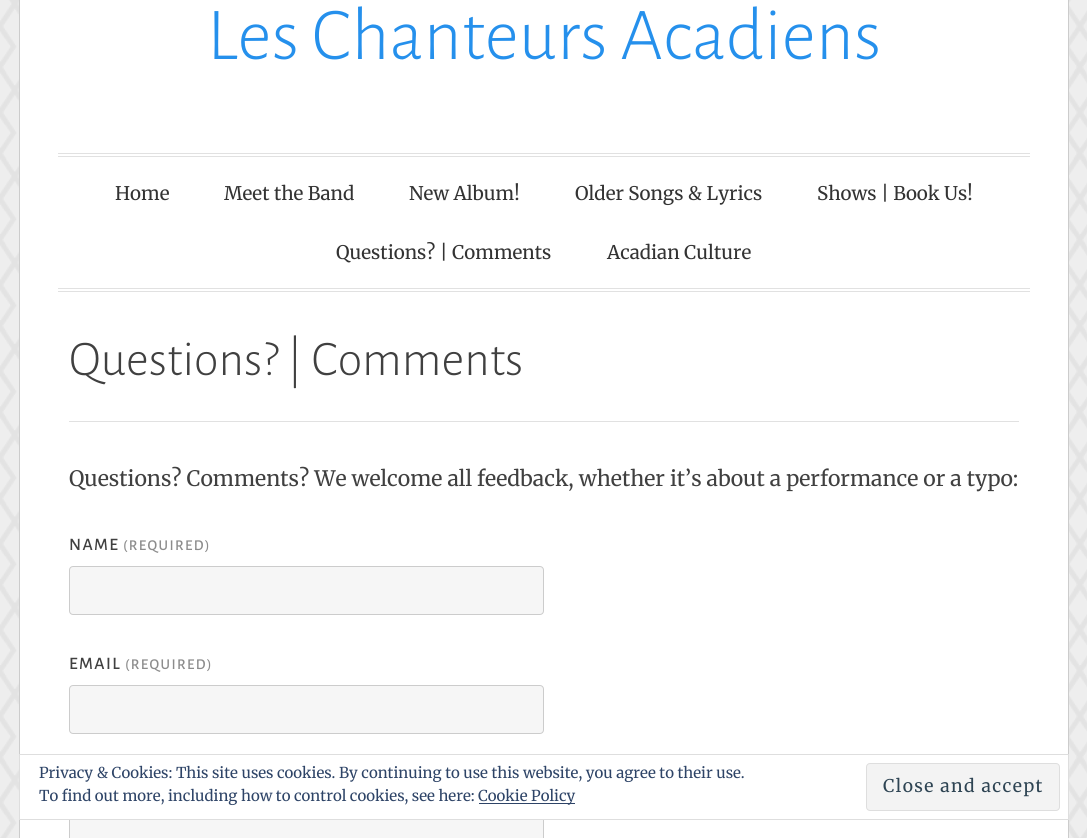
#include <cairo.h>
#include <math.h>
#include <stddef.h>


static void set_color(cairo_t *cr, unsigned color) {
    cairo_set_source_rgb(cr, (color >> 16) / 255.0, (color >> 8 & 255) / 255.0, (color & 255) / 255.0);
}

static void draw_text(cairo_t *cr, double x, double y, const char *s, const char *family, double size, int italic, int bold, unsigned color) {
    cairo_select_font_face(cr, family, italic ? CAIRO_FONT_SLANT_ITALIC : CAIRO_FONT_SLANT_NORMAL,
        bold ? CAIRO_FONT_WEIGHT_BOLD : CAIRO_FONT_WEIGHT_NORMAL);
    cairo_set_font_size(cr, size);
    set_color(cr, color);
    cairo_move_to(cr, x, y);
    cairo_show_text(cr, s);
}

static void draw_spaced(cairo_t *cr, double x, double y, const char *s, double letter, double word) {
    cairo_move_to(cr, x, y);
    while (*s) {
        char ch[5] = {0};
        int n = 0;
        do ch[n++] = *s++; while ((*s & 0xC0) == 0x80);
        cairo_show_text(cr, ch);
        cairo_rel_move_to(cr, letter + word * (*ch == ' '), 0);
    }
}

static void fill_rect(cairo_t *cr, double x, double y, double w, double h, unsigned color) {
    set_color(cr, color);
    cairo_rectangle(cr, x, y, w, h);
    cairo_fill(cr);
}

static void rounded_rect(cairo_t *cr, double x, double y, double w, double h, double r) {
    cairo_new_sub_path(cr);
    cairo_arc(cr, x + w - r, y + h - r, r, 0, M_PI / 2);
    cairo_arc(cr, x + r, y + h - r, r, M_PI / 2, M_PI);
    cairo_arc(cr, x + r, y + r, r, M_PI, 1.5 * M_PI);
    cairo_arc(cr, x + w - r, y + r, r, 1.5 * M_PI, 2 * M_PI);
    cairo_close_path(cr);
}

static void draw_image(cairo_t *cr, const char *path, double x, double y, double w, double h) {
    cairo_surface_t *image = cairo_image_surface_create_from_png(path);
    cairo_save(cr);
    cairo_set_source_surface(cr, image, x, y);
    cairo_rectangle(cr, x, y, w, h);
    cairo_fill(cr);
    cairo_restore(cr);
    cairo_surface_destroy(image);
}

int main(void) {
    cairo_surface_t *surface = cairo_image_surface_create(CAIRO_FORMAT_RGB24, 1087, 838);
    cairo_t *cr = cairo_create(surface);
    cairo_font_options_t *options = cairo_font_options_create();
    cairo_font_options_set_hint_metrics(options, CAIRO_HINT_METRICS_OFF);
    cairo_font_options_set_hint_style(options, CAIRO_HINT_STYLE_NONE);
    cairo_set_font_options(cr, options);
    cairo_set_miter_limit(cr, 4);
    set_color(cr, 0xEEEEEE);
    cairo_paint(cr);
    draw_image(cr, "assets/img1.png", 0, 0, 1087, 838);
    set_color(cr, 0xFFFFFF);
    cairo_rectangle(cr, 19.5, -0.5, 1049, 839);
    cairo_fill_preserve(cr);
    set_color(cr, 0xCCCCCC);
    cairo_set_line_width(cr, 1);
    cairo_stroke(cr);
    draw_text(cr, 207, 59, "Les Chanteurs Acadiens", "Alegreya Sans Light", 75, 0, 0, 0x2590EC);
    fill_rect(cr, 58, 153, 972, 1, 0xE1E1E1);
    fill_rect(cr, 58, 156, 972, 1, 0xE1E1E1);
    fill_rect(cr, 58, 288, 972, 1, 0xE1E1E1);
    fill_rect(cr, 58, 291, 972, 1, 0xE1E1E1);
    draw_text(cr, 115, 200, "Home", "Merriweather", 18.75, 0, 0, 0x333333);
    draw_text(cr, 224, 200, "Meet the Band", "Merriweather", 18.75, 0, 0, 0x333333);
    draw_text(cr, 409, 200, "New Album!", "Merriweather", 18.75, 0, 0, 0x333333);
    draw_text(cr, 575, 200, "Older Songs & Lyrics", "Merriweather", 18.75, 0, 0, 0x333333);
    draw_text(cr, 817, 200, "Shows | Book Us!", "Merriweather", 18.75, 0, 0, 0x333333);
    draw_text(cr, 336, 259, "Questions? | Comments", "Merriweather", 18.75, 0, 0, 0x333333);
    draw_text(cr, 607, 259, "Acadian Culture", "Merriweather", 18.75, 0, 0, 0x333333);
    fill_rect(cr, 69, 421, 950, 1, 0xE1E1E1);
    draw_text(cr, 69, 375, "Questions? | Comments", "Alegreya Sans Light", 50, 0, 0, 0x404040);
    draw_text(cr, 69, 486, "Questions? Comments? We welcome all feedback, whether it’s about a performance or a typo:", "Merriweather", 21.25, 0, 0, 0x404040);
    cairo_select_font_face(cr, "Alegreya Sans Medium", CAIRO_FONT_SLANT_NORMAL, CAIRO_FONT_WEIGHT_NORMAL);
    cairo_set_font_size(cr, 17.5);
    draw_spaced(cr, 69, 550, "NAME", 1.4, 0);
    cairo_set_font_size(cr, 15);
    set_color(cr, 0x8C8C8C);
    draw_spaced(cr, 123, 550, "(REQUIRED)", 1.4, 0);
    set_color(cr, 0xF6F6F6);
    rounded_rect(cr, 69.5, 566.5, 474, 48, 3.5);
    cairo_fill_preserve(cr);
    set_color(cr, 0xCCCCCC);
    cairo_stroke(cr);
    cairo_set_font_size(cr, 17.5);
    set_color(cr, 0x404040);
    draw_spaced(cr, 69, 669, "EMAIL", 1.4, 0);
    cairo_set_font_size(cr, 15);
    set_color(cr, 0x8C8C8C);
    draw_spaced(cr, 125, 669, "(REQUIRED)", 1.4, 0);
    set_color(cr, 0xF6F6F6);
    rounded_rect(cr, 69.5, 685.5, 474, 48, 3.5);
    cairo_fill_preserve(cr);
    set_color(cr, 0xCCCCCC);
    cairo_stroke(cr);
    fill_rect(cr, 70, 820, 473, 18, 0xF6F6F6);
    cairo_rectangle(cr, 69.5, 804.5, 474, 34);
    set_color(cr, 0xCCCCCC);
    cairo_stroke(cr);
    fill_rect(cr, 69, 804, 475, 15, 0xFFFFFF);
    cairo_rectangle(cr, 19.5, 754.5, 1049, 65);
    set_color(cr, 0xDEDEDE);
    cairo_stroke(cr);
    draw_text(cr, 39, 778, "Privacy & Cookies: This site uses cookies. By continuing to use this website, you agree to their use.", "Merriweather", 15, 0, 0, 0x2E4467);
    draw_text(cr, 39, 801, "To find out more, including how to control cookies, see here:", "Merriweather", 15, 0, 0, 0x2E4467);
    fill_rect(cr, 479, 803, 96, 1, 0x2E4467);
    draw_text(cr, 478, 801, "Cookie Policy", "Merriweather", 15, 0, 0, 0x2E4467);
    set_color(cr, 0xF3F3F3);
    rounded_rect(cr, 866.5, 763.5, 193, 47, 3.5);
    cairo_fill_preserve(cr);
    set_color(cr, 0xDEDEDE);
    cairo_stroke(cr);
    cairo_set_font_size(cr, 17.5);
    set_color(cr, 0x2E4453);
    draw_spaced(cr, 883, 792, "Close and accept", 1.4, 0);
    cairo_surface_write_to_png(surface, "output.png");
    cairo_font_options_destroy(options);
    cairo_destroy(cr);
    cairo_surface_destroy(surface);
    return 0;
}
